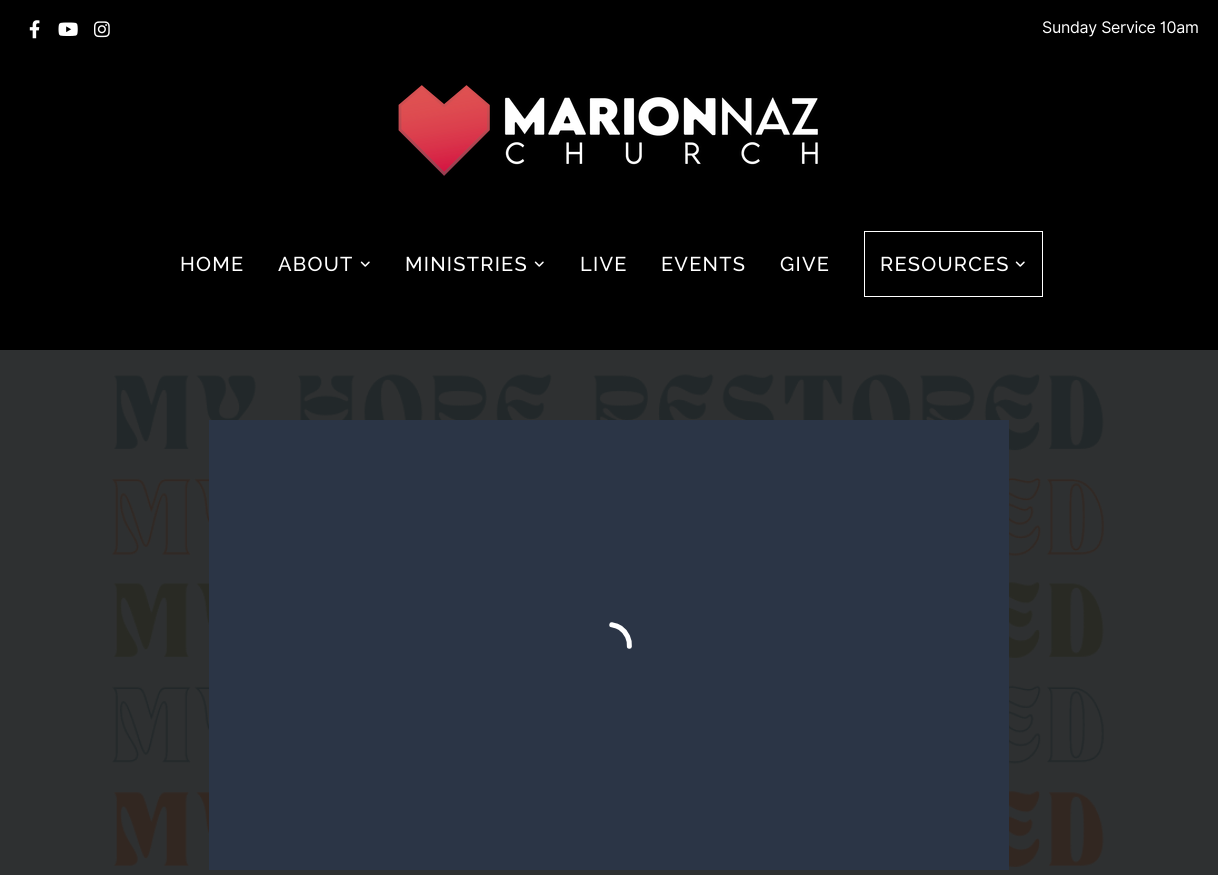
#include <cairo.h>
#include <math.h>
#include <stddef.h>


static void set_color(cairo_t *cr, unsigned color) {
    cairo_set_source_rgb(cr, (color >> 16) / 255.0, (color >> 8 & 255) / 255.0, (color & 255) / 255.0);
}

static void draw_spaced(cairo_t *cr, double x, double y, const char *s, double letter, double word) {
    cairo_move_to(cr, x, y);
    while (*s) {
        char ch[5] = {0};
        int n = 0;
        do ch[n++] = *s++; while ((*s & 0xC0) == 0x80);
        cairo_show_text(cr, ch);
        cairo_rel_move_to(cr, letter + word * (*ch == ' '), 0);
    }
}

static void fill_rect(cairo_t *cr, double x, double y, double w, double h, unsigned color) {
    set_color(cr, color);
    cairo_rectangle(cr, x, y, w, h);
    cairo_fill(cr);
}

static void draw_image(cairo_t *cr, const char *path, double x, double y, double w, double h) {
    cairo_surface_t *image = cairo_image_surface_create_from_png(path);
    cairo_save(cr);
    cairo_set_source_surface(cr, image, x, y);
    cairo_rectangle(cr, x, y, w, h);
    cairo_fill(cr);
    cairo_restore(cr);
    cairo_surface_destroy(image);
}

int main(void) {
    cairo_surface_t *surface = cairo_image_surface_create(CAIRO_FORMAT_RGB24, 1218, 875);
    cairo_t *cr = cairo_create(surface);
    cairo_font_options_t *options = cairo_font_options_create();
    cairo_font_options_set_hint_metrics(options, CAIRO_HINT_METRICS_OFF);
    cairo_font_options_set_hint_style(options, CAIRO_HINT_STYLE_NONE);
    cairo_set_font_options(cr, options);
    cairo_set_miter_limit(cr, 4);
    set_color(cr, 0x343434);
    cairo_paint(cr);
    fill_rect(cr, 0, 0, 1218, 350, 0x000000);
    draw_image(cr, "assets/img1.png", 29, 20, 11, 19);
    draw_image(cr, "assets/img2.png", 58, 22, 20, 14);
    draw_image(cr, "assets/img3.png", 94, 21, 16, 17);
    cairo_select_font_face(cr, "Inter", CAIRO_FONT_SLANT_NORMAL, CAIRO_FONT_WEIGHT_NORMAL);
    cairo_set_font_size(cr, 16);
    set_color(cr, 0xFFFFFF);
    draw_spaced(cr, 1042, 33, "Sunday Service 10am", -0.3, 0);
    draw_image(cr, "assets/img4.png", 398, 85, 420, 91);
    cairo_select_font_face(cr, "Raleway Medium", CAIRO_FONT_SLANT_NORMAL, CAIRO_FONT_WEIGHT_NORMAL);
    cairo_set_font_size(cr, 20);
    draw_spaced(cr, 180, 271, "HOME", 1.25, 0);
    draw_spaced(cr, 278, 271, "ABOUT", 1.25, 0);
    draw_image(cr, "assets/img5.png", 360, 261, 10, 6);
    draw_spaced(cr, 405, 271, "MINISTRIES", 1.25, 0);
    draw_image(cr, "assets/img5.png", 534, 261, 10, 6);
    draw_spaced(cr, 580, 271, "LIVE", 1.25, 0);
    draw_spaced(cr, 661, 271, "EVENTS", 1.25, 0);
    draw_spaced(cr, 780, 271, "GIVE", 1.25, 0);
    cairo_rectangle(cr, 864.5, 231.5, 178, 65);
    cairo_set_line_width(cr, 1);
    cairo_stroke(cr);
    draw_spaced(cr, 880, 271, "RESOURCES", 1.25, 0);
    draw_image(cr, "assets/img5.png", 1015, 261, 10, 6);
    draw_image(cr, "assets/img6.png", 0, 350, 1218, 525);
    draw_image(cr, "assets/img7.png", 209, 420, 800, 450);
    cairo_surface_write_to_png(surface, "output.png");
    cairo_font_options_destroy(options);
    cairo_destroy(cr);
    cairo_surface_destroy(surface);
    return 0;
}
